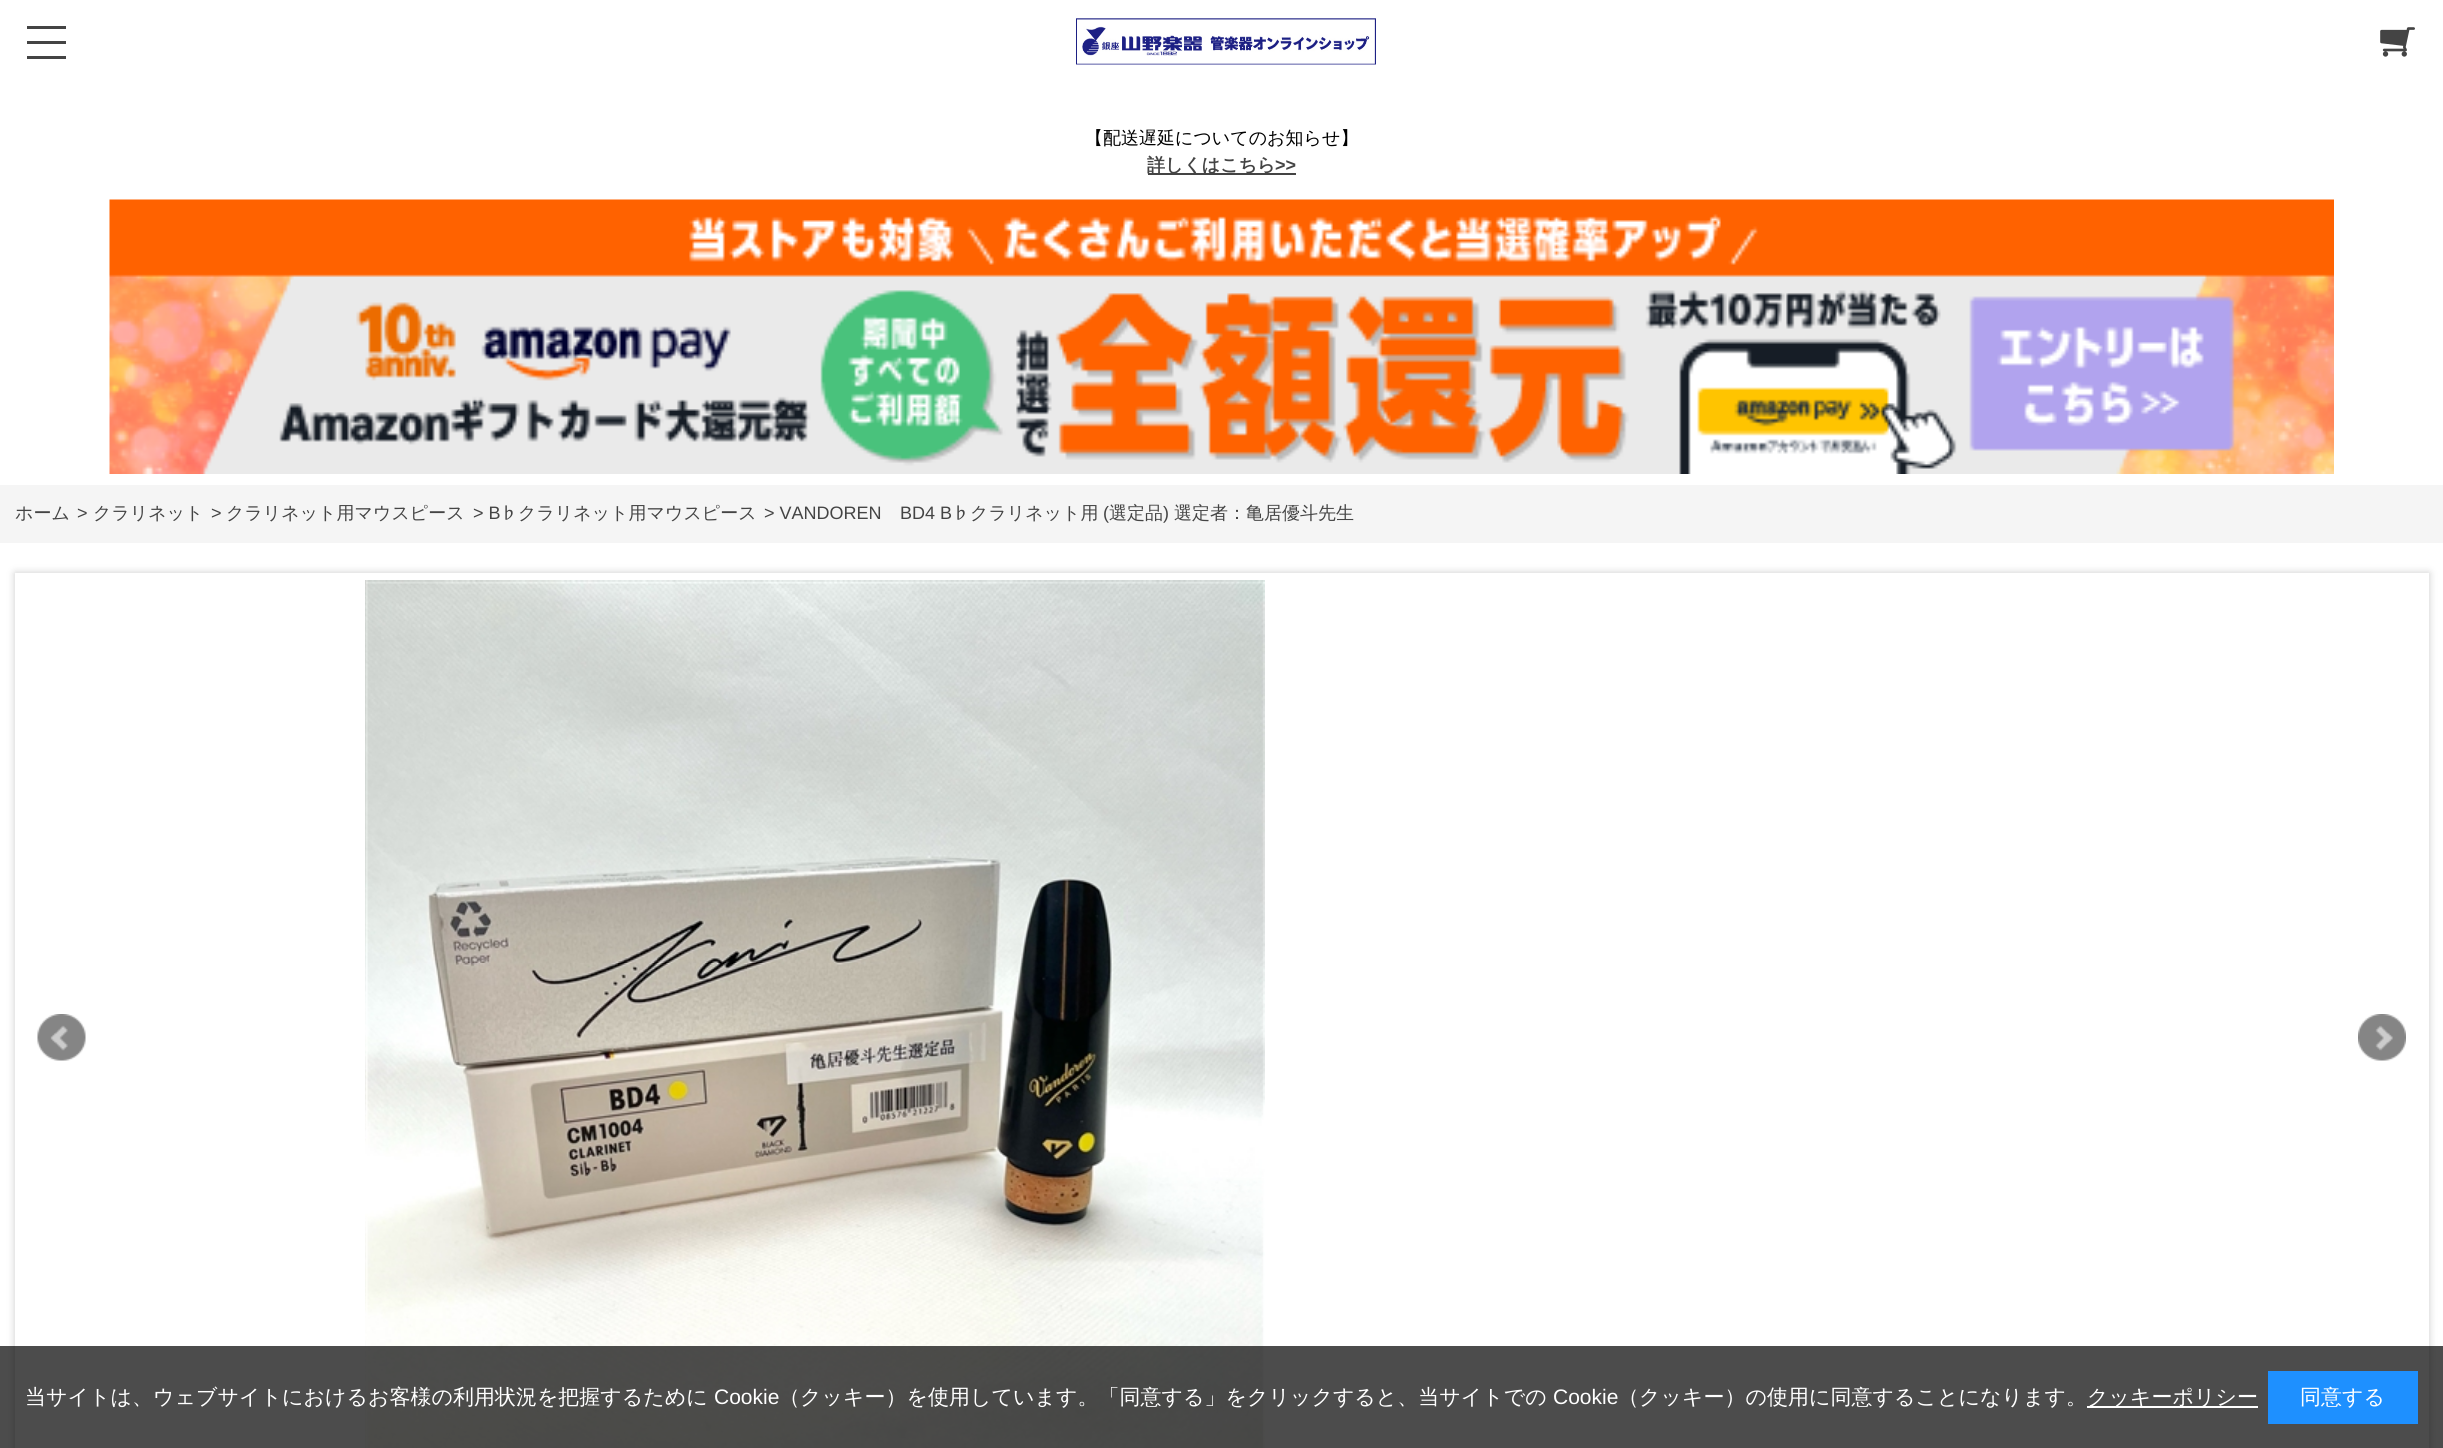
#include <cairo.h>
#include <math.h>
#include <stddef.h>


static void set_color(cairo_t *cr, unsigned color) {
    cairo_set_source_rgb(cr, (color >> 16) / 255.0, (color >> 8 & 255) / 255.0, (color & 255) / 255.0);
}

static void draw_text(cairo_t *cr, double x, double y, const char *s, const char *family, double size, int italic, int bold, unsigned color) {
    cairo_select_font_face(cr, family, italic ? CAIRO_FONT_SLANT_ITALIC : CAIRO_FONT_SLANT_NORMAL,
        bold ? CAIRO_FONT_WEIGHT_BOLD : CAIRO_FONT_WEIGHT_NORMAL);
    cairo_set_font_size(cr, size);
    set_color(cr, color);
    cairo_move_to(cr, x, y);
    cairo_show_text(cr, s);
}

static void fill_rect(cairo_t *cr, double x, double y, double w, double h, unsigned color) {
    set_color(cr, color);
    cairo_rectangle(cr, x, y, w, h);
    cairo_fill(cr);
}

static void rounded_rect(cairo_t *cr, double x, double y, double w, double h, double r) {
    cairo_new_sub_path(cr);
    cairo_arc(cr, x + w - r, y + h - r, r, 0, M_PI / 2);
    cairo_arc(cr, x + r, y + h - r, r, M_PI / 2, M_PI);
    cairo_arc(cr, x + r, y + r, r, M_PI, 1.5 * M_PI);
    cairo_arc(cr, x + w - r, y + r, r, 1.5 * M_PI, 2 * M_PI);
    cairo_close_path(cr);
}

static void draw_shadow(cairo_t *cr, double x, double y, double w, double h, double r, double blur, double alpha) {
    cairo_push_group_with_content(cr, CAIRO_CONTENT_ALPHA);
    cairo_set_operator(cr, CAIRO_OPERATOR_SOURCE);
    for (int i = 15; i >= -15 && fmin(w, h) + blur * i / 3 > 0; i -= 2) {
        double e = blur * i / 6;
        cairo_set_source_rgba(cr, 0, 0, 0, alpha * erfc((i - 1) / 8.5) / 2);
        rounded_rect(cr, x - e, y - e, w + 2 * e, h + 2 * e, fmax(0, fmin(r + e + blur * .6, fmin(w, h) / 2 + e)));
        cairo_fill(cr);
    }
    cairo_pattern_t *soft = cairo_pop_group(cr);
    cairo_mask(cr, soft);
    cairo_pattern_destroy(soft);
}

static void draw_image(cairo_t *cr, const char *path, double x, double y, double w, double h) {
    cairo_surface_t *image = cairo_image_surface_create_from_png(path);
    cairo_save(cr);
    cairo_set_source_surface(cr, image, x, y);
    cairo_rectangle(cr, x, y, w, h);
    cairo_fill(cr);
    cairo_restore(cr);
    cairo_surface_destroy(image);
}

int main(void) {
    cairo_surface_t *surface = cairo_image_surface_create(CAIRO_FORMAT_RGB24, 2443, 1448);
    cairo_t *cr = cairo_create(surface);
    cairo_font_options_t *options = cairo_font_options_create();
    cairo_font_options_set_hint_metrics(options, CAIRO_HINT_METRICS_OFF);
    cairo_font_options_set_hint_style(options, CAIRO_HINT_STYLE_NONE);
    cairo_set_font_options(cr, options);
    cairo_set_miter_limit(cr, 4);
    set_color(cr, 0xFFFFFF);
    cairo_paint(cr);
    draw_image(cr, "assets/img1.png", 1076, 18, 300, 47);
    fill_rect(cr, 27, 26, 39, 3, 0x444444);
    fill_rect(cr, 27, 41, 39, 3, 0x444444);
    fill_rect(cr, 27, 56, 39, 3, 0x444444);
    draw_image(cr, "assets/img2.png", 2380, 27, 35, 30);
    draw_text(cr, 1085, 144, "【配送遅延についてのお知らせ】", "WenQuanYi Zen Hei Medium", 18, 0, 0, 0x000000);
    fill_rect(cr, 1148, 173, 148, 2, 0x444444);
    draw_text(cr, 1147, 171, "詳しくはこちら", "WenQuanYi Zen Hei", 18, 0, 1, 0x444444);
    draw_text(cr, 1275, 171, ">>", "Liberation Sans", 18, 0, 1, 0x444444);
    draw_image(cr, "assets/img3.png", 109, 199, 2225, 275);
    fill_rect(cr, 0, 485, 2443, 58, 0xF5F5F5);
    draw_text(cr, 15, 519, "ホーム", "WenQuanYi Zen Hei Medium", 18, 0, 0, 0x444444);
    draw_text(cr, 77, 519, ">", "Liberation Sans", 18, 0, 0, 0x444444);
    draw_text(cr, 93, 519, "クラリネット", "WenQuanYi Zen Hei Medium", 18, 0, 0, 0x444444);
    draw_text(cr, 211, 519, ">", "Liberation Sans", 18, 0, 0, 0x444444);
    draw_text(cr, 226, 519, "クラリネット用マウスピース", "WenQuanYi Zen Hei Medium", 18, 0, 0, 0x444444);
    draw_text(cr, 473, 519, "> B", "Liberation Sans", 18, 0, 0, 0x444444);
    draw_text(cr, 500, 519, "♭クラリネット用マウスピース", "WenQuanYi Zen Hei Medium", 18, 0, 0, 0x444444);
    draw_text(cr, 764, 519, "> VANDOREN", "Liberation Sans", 18, 0, 0, 0x444444);
    draw_text(cr, 900, 519, "BD4 B", "Liberation Sans", 18, 0, 0, 0x444444);
    draw_text(cr, 952, 519, "♭クラリネット用", "WenQuanYi Zen Hei Medium", 18, 0, 0, 0x444444);
    draw_text(cr, 1103, 519, "(", "Liberation Sans", 18, 0, 0, 0x444444);
    draw_text(cr, 1109, 519, "選定品", "WenQuanYi Zen Hei Medium", 18, 0, 0, 0x444444);
    draw_text(cr, 1163, 519, ")", "Liberation Sans", 18, 0, 0, 0x444444);
    draw_text(cr, 1174, 519, "選定者：亀居優斗先生", "WenQuanYi Zen Hei Medium", 18, 0, 0, 0x444444);
    set_color(cr, 0xCCCCCC);
    draw_shadow(cr, 15, 573, 2414, 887, 0, 4, 1);
    fill_rect(cr, 15, 573, 2414, 875, 0xFFFFFF);
    draw_image(cr, "assets/img4.png", 365, 580, 900, 868);
    draw_image(cr, "assets/img5.png", 37, 1014, 49, 47);
    draw_image(cr, "assets/img6.png", 2358, 1014, 48, 47);
    cairo_set_source_rgba(cr, 0, 0, 0, 0.7);
    cairo_rectangle(cr, 0, 1346, 2443, 102);
    cairo_fill(cr);
    draw_text(cr, 25, 1404, "当サイトは、ウェブサイトにおけるお客様の利用状況を把握するために", "WenQuanYi Zen Hei Medium", 21, 0, 0, 0xFFFFFF);
    draw_text(cr, 714, 1404, "Cookie", "Liberation Sans", 21, 0, 0, 0xFFFFFF);
    draw_text(cr, 779, 1404, "（クッキー）を使用しています。「同意する」をクリックすると、当サイトでの", "WenQuanYi Zen Hei Medium", 21, 0, 0, 0xFFFFFF);
    draw_text(cr, 1553, 1404, "Cookie", "Liberation Sans", 21, 0, 0, 0xFFFFFF);
    draw_text(cr, 1618, 1404, "（クッキー）の使用に同意することになります。", "WenQuanYi Zen Hei Medium", 21, 0, 0, 0xFFFFFF);
    fill_rect(cr, 2087, 1406, 171, 2, 0xFFFFFF);
    draw_text(cr, 2087, 1404, "クッキーポリシー", "WenQuanYi Zen Hei Medium", 21, 0, 0, 0xFFFFFF);
    fill_rect(cr, 2268, 1371, 150, 53, 0x1E90FF);
    draw_text(cr, 2300, 1404, "同意する", "WenQuanYi Zen Hei Medium", 21, 0, 0, 0xFFFFFF);
    cairo_surface_write_to_png(surface, "output.png");
    cairo_font_options_destroy(options);
    cairo_destroy(cr);
    cairo_surface_destroy(surface);
    return 0;
}
